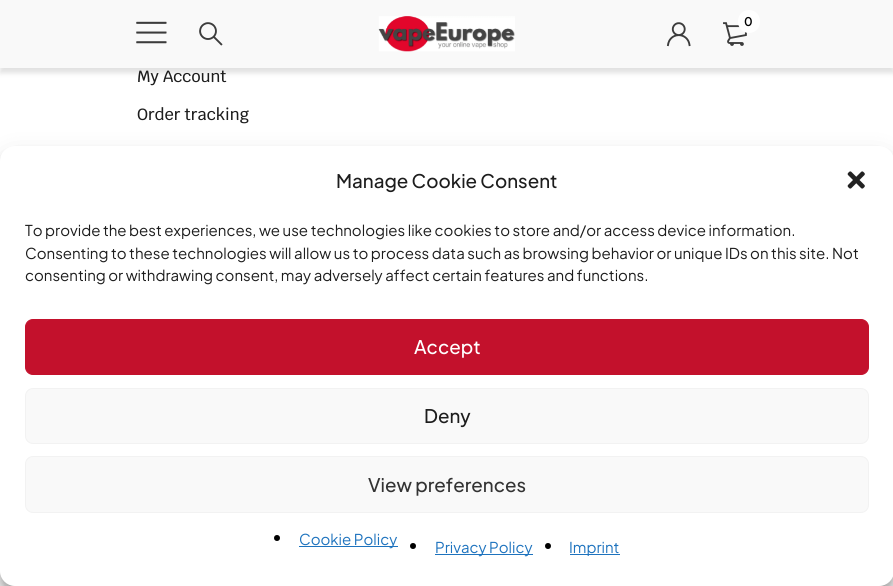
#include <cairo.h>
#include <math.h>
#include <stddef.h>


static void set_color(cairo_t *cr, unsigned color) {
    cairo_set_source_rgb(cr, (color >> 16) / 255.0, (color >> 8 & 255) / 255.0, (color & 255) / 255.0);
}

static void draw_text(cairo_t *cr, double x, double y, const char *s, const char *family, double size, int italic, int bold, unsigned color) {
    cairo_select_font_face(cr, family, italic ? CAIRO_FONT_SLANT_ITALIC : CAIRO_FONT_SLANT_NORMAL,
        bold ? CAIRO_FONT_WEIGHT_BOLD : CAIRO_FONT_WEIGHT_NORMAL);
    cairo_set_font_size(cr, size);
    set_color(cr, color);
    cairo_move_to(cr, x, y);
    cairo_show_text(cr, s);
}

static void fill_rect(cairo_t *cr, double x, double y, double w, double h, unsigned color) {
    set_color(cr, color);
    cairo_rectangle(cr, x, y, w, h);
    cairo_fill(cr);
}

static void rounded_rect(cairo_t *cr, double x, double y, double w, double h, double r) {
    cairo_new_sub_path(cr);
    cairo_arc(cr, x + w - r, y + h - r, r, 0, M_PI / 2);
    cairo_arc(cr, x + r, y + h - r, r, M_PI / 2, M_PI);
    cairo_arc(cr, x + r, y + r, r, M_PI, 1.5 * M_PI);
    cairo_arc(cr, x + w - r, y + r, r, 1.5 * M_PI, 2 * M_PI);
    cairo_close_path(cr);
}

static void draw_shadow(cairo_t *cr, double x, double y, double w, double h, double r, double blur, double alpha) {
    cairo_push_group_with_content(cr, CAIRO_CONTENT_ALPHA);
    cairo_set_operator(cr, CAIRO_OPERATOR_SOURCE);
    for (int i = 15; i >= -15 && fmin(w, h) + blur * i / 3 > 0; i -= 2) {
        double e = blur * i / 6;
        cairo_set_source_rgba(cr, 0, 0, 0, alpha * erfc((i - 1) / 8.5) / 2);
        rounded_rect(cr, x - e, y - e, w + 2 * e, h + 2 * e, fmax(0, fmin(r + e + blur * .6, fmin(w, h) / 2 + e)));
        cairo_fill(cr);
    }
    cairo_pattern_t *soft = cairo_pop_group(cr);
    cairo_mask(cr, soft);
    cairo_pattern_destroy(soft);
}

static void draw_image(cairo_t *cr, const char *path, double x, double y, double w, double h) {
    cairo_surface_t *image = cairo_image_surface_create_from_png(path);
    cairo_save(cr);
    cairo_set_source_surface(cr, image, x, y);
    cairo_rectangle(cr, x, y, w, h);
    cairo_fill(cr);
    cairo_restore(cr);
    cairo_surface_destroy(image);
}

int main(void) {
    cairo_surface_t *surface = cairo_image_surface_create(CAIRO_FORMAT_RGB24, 893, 586);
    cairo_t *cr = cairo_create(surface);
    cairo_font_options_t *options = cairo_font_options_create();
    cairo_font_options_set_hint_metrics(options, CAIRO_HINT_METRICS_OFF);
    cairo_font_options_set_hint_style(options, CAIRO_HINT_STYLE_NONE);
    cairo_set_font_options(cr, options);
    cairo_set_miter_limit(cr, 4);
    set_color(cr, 0xFFFFFF);
    cairo_paint(cr);
    set_color(cr, 0x9B9B9B);
    draw_shadow(cr, 0, 5, 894, 68, 0, 2.5, 0.3);
    fill_rect(cr, 0, 0, 893, 68, 0xF9F9F9);
    draw_image(cr, "assets/img1.png", 136, 21, 31, 23);
    draw_image(cr, "assets/img2.png", 199, 22, 24, 24);
    draw_image(cr, "assets/img3.png", 378, 16, 137, 36);
    draw_image(cr, "assets/img4.png", 666, 22, 25, 25);
    draw_image(cr, "assets/img5.png", 723, 22, 24, 24);
    set_color(cr, 0xFFFFFF);
    rounded_rect(cr, 738, 10, 22, 23, 11);
    cairo_fill(cr);
    draw_text(cr, 744, 26, "0", "Plus Jakarta Sans SemiBold", 12, 0, 0, 0x000000);
    draw_text(cr, 137, 82, "My Account", "Krub Medium", 16.25, 0, 0, 0x1D1D1D);
    draw_text(cr, 137, 120, "Order tracking", "Krub Medium", 16.25, 0, 0, 0x1D1D1D);
    set_color(cr, 0x000000);
    draw_shadow(cr, 0, 154, 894, 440, 15, 4, 0.23);
    draw_shadow(cr, 0, 159, 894, 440, 15, 12.5, 0.19);
    set_color(cr, 0xFFFFFF);
    rounded_rect(cr, 0, 146, 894, 440, 15);
    cairo_fill(cr);
    draw_text(cr, 336, 188, "Manage Cookie Consent", "Plus Jakarta Sans Medium", 18.75, 0, 0, 0x1D1D1D);
    draw_image(cr, "assets/img6.png", 847, 171, 18, 18);
    draw_text(cr, 25, 236, "To provide the best experiences, we use technologies like cookies to store and/or access device information.", "Plus Jakarta Sans", 15, 0, 0, 0x1D1D1D);
    draw_text(cr, 25, 259, "Consenting to these technologies will allow us to process data such as browsing behavior or unique IDs on this site. Not", "Plus Jakarta Sans", 15, 0, 0, 0x1D1D1D);
    draw_text(cr, 25, 281, "consenting or withdrawing consent, may adversely affect certain features and functions.", "Plus Jakarta Sans", 15, 0, 0, 0x1D1D1D);
    set_color(cr, 0xC3112C);
    rounded_rect(cr, 25.5, 319.5, 843, 55, 7.5);
    cairo_fill_preserve(cr);
    cairo_set_line_width(cr, 1);
    cairo_stroke(cr);
    draw_text(cr, 414, 354, "Accept", "Plus Jakarta Sans Medium", 18.75, 0, 0, 0xFFFFFF);
    set_color(cr, 0xF9F9F9);
    rounded_rect(cr, 25.5, 388.5, 843, 55, 7.5);
    cairo_fill_preserve(cr);
    set_color(cr, 0xF2F2F2);
    cairo_stroke(cr);
    draw_text(cr, 424, 423, "Deny", "Plus Jakarta Sans Medium", 18.75, 0, 0, 0x1D1D1D);
    set_color(cr, 0xF9F9F9);
    rounded_rect(cr, 25.5, 456.5, 843, 56, 7.5);
    cairo_fill_preserve(cr);
    set_color(cr, 0xF2F2F2);
    cairo_stroke(cr);
    draw_text(cr, 368, 492, "View preferences", "Plus Jakarta Sans Medium", 18.75, 0, 0, 0x333333);
    set_color(cr, 0x000000);
    cairo_new_path(cr);
    cairo_arc(cr, 277, 538, 3, 0, 2 * M_PI);
    cairo_fill(cr);
    fill_rect(cr, 299, 546, 99, 1, 0x1E73BE);
    draw_text(cr, 299, 545, "Cookie Policy", "Plus Jakarta Sans", 15, 0, 0, 0x1E73BE);
    set_color(cr, 0x000000);
    cairo_new_path(cr);
    cairo_arc(cr, 413, 546, 3, 0, 2 * M_PI);
    cairo_fill(cr);
    fill_rect(cr, 435, 554, 98, 1, 0x1E73BE);
    draw_text(cr, 435, 553, "Privacy Policy", "Plus Jakarta Sans", 15, 0, 0, 0x1E73BE);
    set_color(cr, 0x000000);
    cairo_new_path(cr);
    cairo_arc(cr, 548, 546, 3, 0, 2 * M_PI);
    cairo_fill(cr);
    fill_rect(cr, 570, 554, 50, 1, 0x1E73BE);
    draw_text(cr, 569, 553, "Imprint", "Plus Jakarta Sans", 15, 0, 0, 0x1E73BE);
    cairo_surface_write_to_png(surface, "output.png");
    cairo_font_options_destroy(options);
    cairo_destroy(cr);
    cairo_surface_destroy(surface);
    return 0;
}
